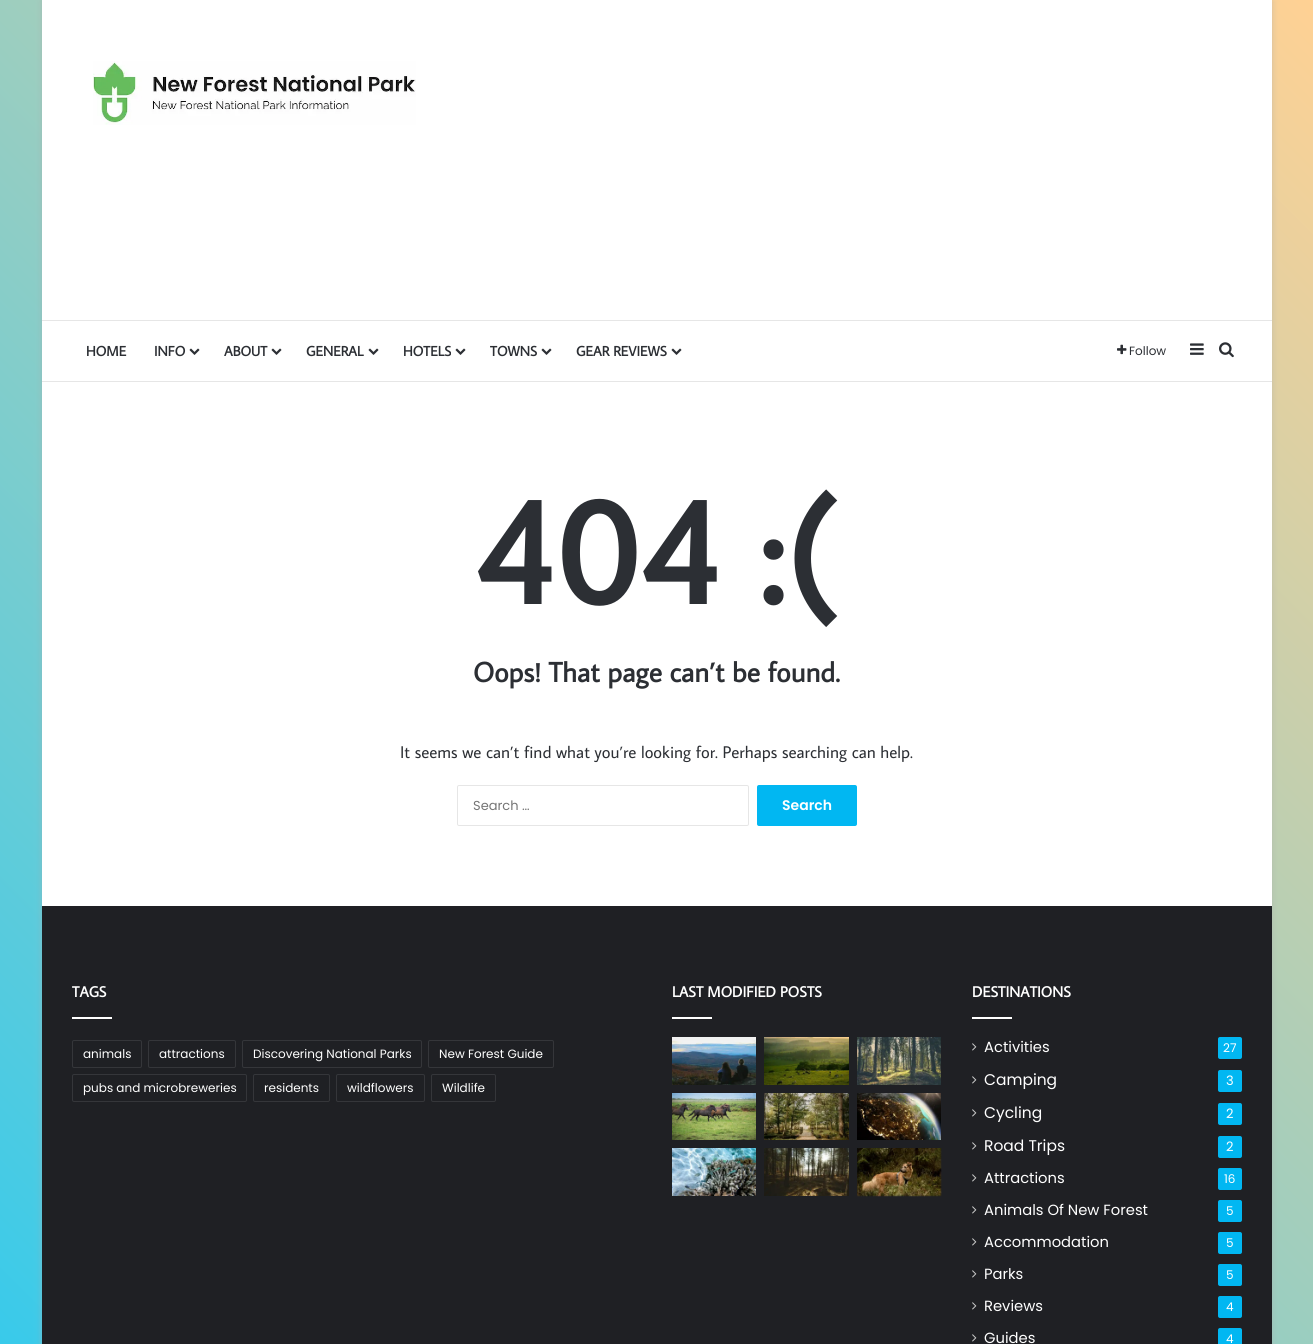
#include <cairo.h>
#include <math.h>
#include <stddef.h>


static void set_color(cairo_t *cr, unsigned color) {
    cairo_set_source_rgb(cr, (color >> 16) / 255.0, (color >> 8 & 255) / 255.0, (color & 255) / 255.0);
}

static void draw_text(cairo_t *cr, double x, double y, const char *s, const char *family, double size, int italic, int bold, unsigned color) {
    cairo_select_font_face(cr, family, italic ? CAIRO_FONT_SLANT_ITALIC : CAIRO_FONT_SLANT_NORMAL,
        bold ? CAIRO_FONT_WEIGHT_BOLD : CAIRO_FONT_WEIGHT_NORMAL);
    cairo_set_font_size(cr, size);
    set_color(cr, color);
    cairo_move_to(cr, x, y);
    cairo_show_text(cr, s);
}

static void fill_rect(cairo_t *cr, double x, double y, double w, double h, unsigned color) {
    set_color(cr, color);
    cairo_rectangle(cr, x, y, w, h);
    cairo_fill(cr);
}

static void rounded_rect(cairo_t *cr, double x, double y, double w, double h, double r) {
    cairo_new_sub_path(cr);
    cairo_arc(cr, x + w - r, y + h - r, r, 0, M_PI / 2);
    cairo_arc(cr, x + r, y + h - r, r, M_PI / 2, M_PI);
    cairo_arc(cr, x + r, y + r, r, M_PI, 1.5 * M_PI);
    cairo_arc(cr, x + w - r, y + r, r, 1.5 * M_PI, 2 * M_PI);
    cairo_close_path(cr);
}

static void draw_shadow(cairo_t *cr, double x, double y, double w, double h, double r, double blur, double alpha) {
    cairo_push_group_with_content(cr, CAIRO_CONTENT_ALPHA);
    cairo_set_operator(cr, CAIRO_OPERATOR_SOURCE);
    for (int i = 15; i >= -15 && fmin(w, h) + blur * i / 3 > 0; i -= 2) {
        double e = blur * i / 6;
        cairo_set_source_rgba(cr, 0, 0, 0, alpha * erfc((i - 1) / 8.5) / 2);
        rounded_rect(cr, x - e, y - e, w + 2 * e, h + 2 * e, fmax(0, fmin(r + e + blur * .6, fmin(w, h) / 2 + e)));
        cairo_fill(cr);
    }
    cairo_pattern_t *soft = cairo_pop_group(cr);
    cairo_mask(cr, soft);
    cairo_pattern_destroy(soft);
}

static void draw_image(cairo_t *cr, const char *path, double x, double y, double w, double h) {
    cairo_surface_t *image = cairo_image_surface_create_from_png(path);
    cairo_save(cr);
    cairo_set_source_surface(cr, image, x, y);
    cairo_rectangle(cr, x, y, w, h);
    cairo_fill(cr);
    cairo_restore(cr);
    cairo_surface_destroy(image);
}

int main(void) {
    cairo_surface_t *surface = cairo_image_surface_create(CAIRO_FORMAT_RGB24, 1313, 1344);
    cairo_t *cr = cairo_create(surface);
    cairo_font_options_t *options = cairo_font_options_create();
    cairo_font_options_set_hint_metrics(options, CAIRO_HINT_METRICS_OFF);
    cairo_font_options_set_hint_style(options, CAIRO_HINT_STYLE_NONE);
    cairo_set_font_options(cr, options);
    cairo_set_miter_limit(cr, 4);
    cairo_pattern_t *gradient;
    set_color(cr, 0xFFFFFF);
    cairo_paint(cr);
    gradient = cairo_pattern_create_linear(-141, 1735, 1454, 141);
    cairo_pattern_add_color_stop_rgba(gradient, 0, 0.067, 0.788, 0.988, 1);
    cairo_pattern_add_color_stop_rgba(gradient, 1, 1, 0.82, 0.58, 1);
    cairo_set_source(cr, gradient);
    cairo_pattern_destroy(gradient);
    cairo_rectangle(cr, 0, 0, 1313, 1344);
    cairo_fill(cr);
    set_color(cr, 0xABABAB);
    draw_shadow(cr, 42, 1, 1230, 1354, 0, 3.5, 0.5);
    fill_rect(cr, 42, 0, 1230, 906, 0xFFFFFF);
    draw_image(cr, "assets/img1.png", 93, 61, 323, 64);
    fill_rect(cr, 42, 320, 1230, 1, 0xE6E6E6);
    fill_rect(cr, 42, 381, 1230, 1, 0xE6E6E6);
    draw_text(cr, 86, 356, "HOME", "Average Sans", 14, 0, 1, 0x2C2F34);
    draw_text(cr, 154, 356, "INFO", "Average Sans", 14, 0, 1, 0x2C2F34);
    draw_image(cr, "assets/img2.png", 189, 348, 11, 7);
    draw_text(cr, 224, 356, "ABOUT", "Average Sans", 14, 0, 1, 0x2C2F34);
    draw_image(cr, "assets/img2.png", 271, 348, 11, 7);
    draw_text(cr, 306, 356, "GENERAL", "Average Sans", 14, 0, 1, 0x2C2F34);
    draw_image(cr, "assets/img2.png", 368, 348, 11, 7);
    draw_text(cr, 403, 356, "HOTELS", "Average Sans", 14, 0, 1, 0x2C2F34);
    draw_image(cr, "assets/img2.png", 455, 348, 11, 7);
    draw_text(cr, 490, 356, "TOWNS", "Average Sans", 14, 0, 1, 0x2C2F34);
    draw_image(cr, "assets/img2.png", 541, 348, 11, 7);
    draw_text(cr, 576, 356, "GEAR REVIEWS", "Average Sans", 14, 0, 1, 0x2C2F34);
    draw_image(cr, "assets/img2.png", 671, 348, 11, 7);
    draw_image(cr, "assets/img3.png", 1117, 344, 10, 11);
    draw_text(cr, 1129, 355, "Follow", "Poppins", 12, 0, 0, 0x2C2F34);
    draw_image(cr, "assets/img4.png", 1190, 343, 14, 12);
    draw_image(cr, "assets/img5.png", 1219, 342, 15, 16);
    draw_text(cr, 476, 604, "404 :(", "Average Sans", 150, 0, 1, 0x2C2F34);
    draw_text(cr, 473, 682, "Oops! That page can’t be found.", "Average Sans", 28, 0, 1, 0x2C2F34);
    draw_text(cr, 400, 758, "It seems we can’t find what you’re looking for. Perhaps searching can help.", "Average Sans", 17, 0, 0, 0x2C2F34);
    rounded_rect(cr, 457.5, 785.5, 291, 40, 1.5);
    set_color(cr, 0xE6E6E6);
    cairo_set_line_width(cr, 1);
    cairo_stroke(cr);
    draw_text(cr, 473, 810, "Search …", "Poppins", 13, 0, 0, 0x757575);
    set_color(cr, 0x01B7F2);
    rounded_rect(cr, 757, 785, 100, 41, 2);
    cairo_fill(cr);
    draw_text(cr, 782, 810, "Search", "Poppins SemiBold", 14, 0, 0, 0xFFFFFF);
    fill_rect(cr, 42, 906, 1230, 438, 0x1F2024);
    draw_text(cr, 72, 997, "TAGS", "Average Sans", 15, 0, 1, 0xFFFFFF);
    fill_rect(cr, 72, 1017, 40, 2, 0xFFFFFF);
    rounded_rect(cr, 72.5, 1040.5, 69, 27, 1.5);
    set_color(cr, 0x35363A);
    cairo_stroke(cr);
    draw_text(cr, 83, 1058, "animals", "Poppins", 12, 0, 0, 0xFFFFFF);
    rounded_rect(cr, 148.5, 1040.5, 87, 27, 1.5);
    set_color(cr, 0x35363A);
    cairo_stroke(cr);
    draw_text(cr, 159, 1058, "attractions", "Poppins", 12, 0, 0, 0xFFFFFF);
    rounded_rect(cr, 242.5, 1040.5, 179, 27, 1.5);
    set_color(cr, 0x35363A);
    cairo_stroke(cr);
    draw_text(cr, 253, 1058, "Discovering National Parks", "Poppins", 12, 0, 0, 0xFFFFFF);
    rounded_rect(cr, 428.5, 1040.5, 125, 27, 1.5);
    set_color(cr, 0x35363A);
    cairo_stroke(cr);
    draw_text(cr, 439, 1058, "New Forest Guide", "Poppins", 12, 0, 0, 0xFFFFFF);
    rounded_rect(cr, 72.5, 1074.5, 174, 27, 1.5);
    set_color(cr, 0x35363A);
    cairo_stroke(cr);
    draw_text(cr, 83, 1092, "pubs and microbreweries", "Poppins", 12, 0, 0, 0xFFFFFF);
    rounded_rect(cr, 253.5, 1074.5, 76, 27, 1.5);
    set_color(cr, 0x35363A);
    cairo_stroke(cr);
    draw_text(cr, 264, 1092, "residents", "Poppins", 12, 0, 0, 0xFFFFFF);
    rounded_rect(cr, 336.5, 1074.5, 88, 27, 1.5);
    set_color(cr, 0x35363A);
    cairo_stroke(cr);
    draw_text(cr, 347, 1092, "wildflowers", "Poppins", 12, 0, 0, 0xFFFFFF);
    rounded_rect(cr, 431.5, 1074.5, 64, 27, 1.5);
    set_color(cr, 0x35363A);
    cairo_stroke(cr);
    draw_text(cr, 442, 1092, "Wildlife", "Poppins", 12, 0, 0, 0xFFFFFF);
    draw_text(cr, 672, 997, "LAST MODIFIED POSTS", "Average Sans", 15, 0, 1, 0xFFFFFF);
    fill_rect(cr, 672, 1017, 40, 2, 0xFFFFFF);
    draw_image(cr, "assets/img6.png", 672, 1037, 84, 48);
    draw_image(cr, "assets/img7.png", 764, 1037, 85, 48);
    draw_image(cr, "assets/img8.png", 857, 1037, 84, 48);
    draw_image(cr, "assets/img9.png", 672, 1093, 84, 47);
    draw_image(cr, "assets/img10.png", 764, 1093, 85, 47);
    draw_image(cr, "assets/img11.png", 857, 1093, 84, 47);
    draw_image(cr, "assets/img12.png", 672, 1148, 84, 48);
    draw_image(cr, "assets/img13.png", 764, 1148, 85, 48);
    draw_image(cr, "assets/img14.png", 857, 1148, 85, 49);
    draw_text(cr, 972, 997, "DESTINATIONS", "Average Sans", 15, 0, 1, 0xFFFFFF);
    fill_rect(cr, 972, 1017, 40, 2, 0xFFFFFF);
    draw_image(cr, "assets/img15.png", 972, 1043, 5, 8);
    draw_text(cr, 984, 1052, "Activities", "Poppins", 14.75, 0, 0, 0xFFFFFF);
    set_color(cr, 0x01B7F2);
    rounded_rect(cr, 1218, 1037, 24, 22, 2);
    cairo_fill(cr);
    draw_text(cr, 1223, 1052, "27", "Poppins", 12, 0, 0, 0xFFFFFF);
    draw_image(cr, "assets/img15.png", 972, 1076, 5, 8);
    draw_text(cr, 984, 1085, "Camping", "Poppins", 15.5, 0, 0, 0xFFFFFF);
    set_color(cr, 0x01B7F2);
    rounded_rect(cr, 1218, 1070, 24, 22, 2);
    cairo_fill(cr);
    draw_text(cr, 1226, 1085, "3", "Poppins", 13, 0, 0, 0xFFFFFF);
    draw_image(cr, "assets/img15.png", 972, 1109, 5, 8);
    draw_text(cr, 984, 1118, "Cycling", "Poppins", 15.5, 0, 0, 0xFFFFFF);
    set_color(cr, 0x01B7F2);
    rounded_rect(cr, 1218, 1103, 24, 22, 2);
    cairo_fill(cr);
    draw_text(cr, 1226, 1118, "2", "Poppins", 13, 0, 0, 0xFFFFFF);
    draw_image(cr, "assets/img15.png", 972, 1142, 5, 8);
    draw_text(cr, 984, 1151, "Road Trips", "Poppins", 15.5, 0, 0, 0xFFFFFF);
    set_color(cr, 0x01B7F2);
    rounded_rect(cr, 1218, 1136, 24, 22, 2);
    cairo_fill(cr);
    draw_text(cr, 1226, 1151, "2", "Poppins", 13, 0, 0, 0xFFFFFF);
    draw_image(cr, "assets/img15.png", 972, 1174, 5, 8);
    draw_text(cr, 984, 1183, "Attractions", "Poppins", 14.75, 0, 0, 0xFFFFFF);
    set_color(cr, 0x01B7F2);
    rounded_rect(cr, 1218, 1168, 24, 22, 2);
    cairo_fill(cr);
    draw_text(cr, 1224, 1183, "16", "Poppins", 12, 0, 0, 0xFFFFFF);
    draw_image(cr, "assets/img15.png", 972, 1206, 5, 8);
    draw_text(cr, 984, 1215, "Animals Of New Forest", "Poppins", 14.75, 0, 0, 0xFFFFFF);
    set_color(cr, 0x01B7F2);
    rounded_rect(cr, 1218, 1200, 24, 22, 2);
    cairo_fill(cr);
    draw_text(cr, 1226, 1215, "5", "Poppins", 12, 0, 0, 0xFFFFFF);
    draw_image(cr, "assets/img15.png", 972, 1238, 5, 8);
    draw_text(cr, 984, 1247, "Accommodation", "Poppins", 14.75, 0, 0, 0xFFFFFF);
    set_color(cr, 0x01B7F2);
    rounded_rect(cr, 1218, 1232, 24, 22, 2);
    cairo_fill(cr);
    draw_text(cr, 1226, 1247, "5", "Poppins", 12, 0, 0, 0xFFFFFF);
    draw_image(cr, "assets/img15.png", 972, 1270, 5, 8);
    draw_text(cr, 984, 1279, "Parks", "Poppins", 14.75, 0, 0, 0xFFFFFF);
    set_color(cr, 0x01B7F2);
    rounded_rect(cr, 1218, 1264, 24, 22, 2);
    cairo_fill(cr);
    draw_text(cr, 1226, 1279, "5", "Poppins", 12, 0, 0, 0xFFFFFF);
    draw_image(cr, "assets/img15.png", 972, 1302, 5, 8);
    draw_text(cr, 984, 1311, "Reviews", "Poppins", 14.75, 0, 0, 0xFFFFFF);
    set_color(cr, 0x01B7F2);
    rounded_rect(cr, 1218, 1296, 24, 22, 2);
    cairo_fill(cr);
    draw_text(cr, 1226, 1311, "4", "Poppins", 12, 0, 0, 0xFFFFFF);
    draw_image(cr, "assets/img15.png", 972, 1334, 5, 8);
    draw_text(cr, 984, 1343, "Guides", "Poppins", 14.75, 0, 0, 0xFFFFFF);
    set_color(cr, 0x01B7F2);
    rounded_rect(cr, 1218, 1328, 24, 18, 2);
    cairo_fill(cr);
    draw_text(cr, 1226, 1343, "4", "Poppins", 12, 0, 0, 0xFFFFFF);
    cairo_surface_write_to_png(surface, "output.png");
    cairo_font_options_destroy(options);
    cairo_destroy(cr);
    cairo_surface_destroy(surface);
    return 0;
}
